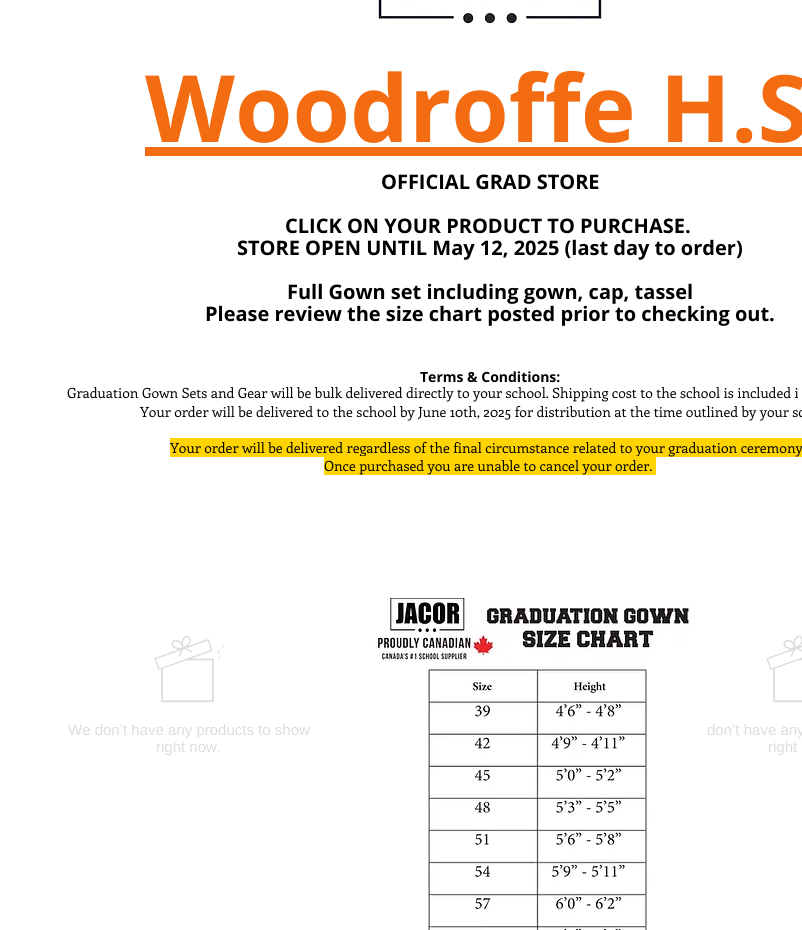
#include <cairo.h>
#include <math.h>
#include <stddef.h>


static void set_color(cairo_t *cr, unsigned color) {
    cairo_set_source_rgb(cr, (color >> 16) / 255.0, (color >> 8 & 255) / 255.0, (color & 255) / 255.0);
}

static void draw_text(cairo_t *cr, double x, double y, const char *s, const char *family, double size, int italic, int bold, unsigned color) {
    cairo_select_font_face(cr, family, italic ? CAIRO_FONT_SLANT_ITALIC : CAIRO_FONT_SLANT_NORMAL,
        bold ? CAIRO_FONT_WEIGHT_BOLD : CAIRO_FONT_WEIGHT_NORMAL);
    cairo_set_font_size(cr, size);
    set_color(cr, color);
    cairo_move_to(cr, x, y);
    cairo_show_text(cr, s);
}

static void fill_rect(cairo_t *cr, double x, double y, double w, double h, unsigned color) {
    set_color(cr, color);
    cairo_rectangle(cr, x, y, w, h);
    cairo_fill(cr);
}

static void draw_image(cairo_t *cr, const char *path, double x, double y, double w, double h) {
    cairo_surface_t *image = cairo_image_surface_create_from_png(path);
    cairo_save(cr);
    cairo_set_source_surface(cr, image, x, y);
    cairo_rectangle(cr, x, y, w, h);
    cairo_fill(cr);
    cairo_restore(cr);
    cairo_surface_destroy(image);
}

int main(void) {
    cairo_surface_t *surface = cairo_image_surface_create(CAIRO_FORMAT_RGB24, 802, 930);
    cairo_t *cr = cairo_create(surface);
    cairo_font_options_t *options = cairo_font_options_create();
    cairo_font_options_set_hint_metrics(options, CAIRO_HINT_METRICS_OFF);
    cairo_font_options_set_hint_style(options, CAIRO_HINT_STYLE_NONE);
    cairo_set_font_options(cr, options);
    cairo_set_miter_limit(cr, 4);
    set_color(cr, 0xFFFFFF);
    cairo_paint(cr);
    draw_image(cr, "assets/img1.png", 376, 0, 228, 24);
    draw_text(cr, 145, 142, "Woodroffe H.S", "Open Sans", 93, 0, 1, 0xF36C11);
    fill_rect(cr, 145, 147, 657, 9, 0xF36C11);
    draw_text(cr, 381, 189, "OFFICIAL GRAD STORE", "Open Sans", 20, 0, 1, 0x000000);
    draw_text(cr, 285, 233, "CLICK ON YOUR PRODUCT TO PURCHASE.", "Open Sans", 20, 0, 1, 0x000000);
    draw_text(cr, 237, 255, "STORE OPEN UNTIL May 12, 2025 (last day to order)", "Open Sans", 20, 0, 1, 0x000000);
    draw_text(cr, 287, 299, "Full Gown set including gown, cap, tassel", "Open Sans", 20, 0, 1, 0x000000);
    draw_text(cr, 205, 321, "Please review the size chart posted prior to checking out.", "Open Sans", 20, 0, 1, 0x000000);
    draw_text(cr, 420, 382, "Terms & Conditions:", "Open Sans", 14, 0, 1, 0x000000);
    draw_text(cr, 67, 398, "Graduation Gown Sets and Gear will be bulk delivered directly to your school. Shipping cost to the school is included i", "Enriqueta", 14, 0, 0, 0x000000);
    draw_text(cr, 140, 417, "Your order will be delivered to the school by June 10th, 2025 for distribution at the time outlined by your sc", "Enriqueta", 14, 0, 0, 0x000000);
    fill_rect(cr, 170, 438, 632, 19, 0xFFD400);
    draw_text(cr, 170, 453, "Your order will be delivered regardless of the final circumstance related to your graduation ceremony", "Enriqueta", 14, 0, 0, 0x000000);
    fill_rect(cr, 324, 456, 332, 19, 0xFFD400);
    draw_text(cr, 324, 471, "Once purchased you are unable to cancel your order.", "Enriqueta", 14, 0, 0, 0x000000);
    draw_image(cr, "assets/img2.png", 374, 598, 327, 332);
    draw_image(cr, "assets/img3.png", 154, 635, 70, 68);
    draw_text(cr, 68, 735, "We don’t have any products to show", "Liberation Sans", 15, 0, 0, 0xDDDDDD);
    draw_text(cr, 156, 752, "right now.", "Liberation Sans", 15, 0, 0, 0xDDDDDD);
    draw_image(cr, "assets/img4.png", 766, 635, 36, 68);
    draw_text(cr, 707, 735, "don’t have any", "Liberation Sans", 15, 0, 0, 0xDDDDDD);
    draw_text(cr, 768, 752, "right", "Liberation Sans", 15, 0, 0, 0xDDDDDD);
    cairo_surface_write_to_png(surface, "output.png");
    cairo_font_options_destroy(options);
    cairo_destroy(cr);
    cairo_surface_destroy(surface);
    return 0;
}
